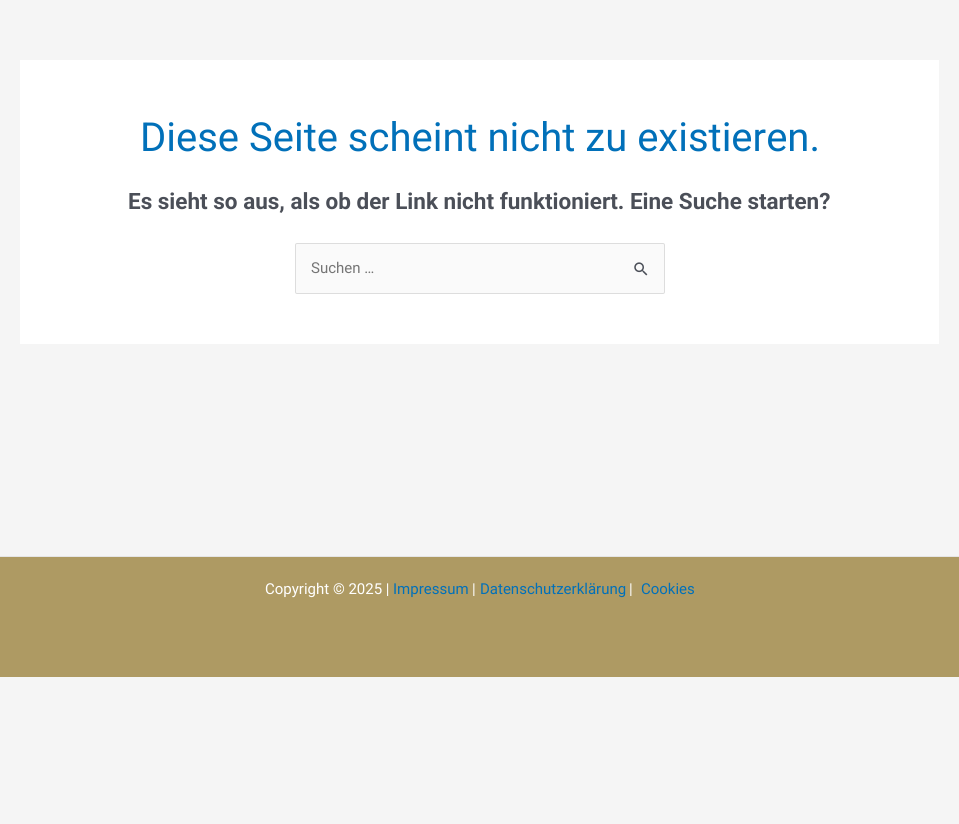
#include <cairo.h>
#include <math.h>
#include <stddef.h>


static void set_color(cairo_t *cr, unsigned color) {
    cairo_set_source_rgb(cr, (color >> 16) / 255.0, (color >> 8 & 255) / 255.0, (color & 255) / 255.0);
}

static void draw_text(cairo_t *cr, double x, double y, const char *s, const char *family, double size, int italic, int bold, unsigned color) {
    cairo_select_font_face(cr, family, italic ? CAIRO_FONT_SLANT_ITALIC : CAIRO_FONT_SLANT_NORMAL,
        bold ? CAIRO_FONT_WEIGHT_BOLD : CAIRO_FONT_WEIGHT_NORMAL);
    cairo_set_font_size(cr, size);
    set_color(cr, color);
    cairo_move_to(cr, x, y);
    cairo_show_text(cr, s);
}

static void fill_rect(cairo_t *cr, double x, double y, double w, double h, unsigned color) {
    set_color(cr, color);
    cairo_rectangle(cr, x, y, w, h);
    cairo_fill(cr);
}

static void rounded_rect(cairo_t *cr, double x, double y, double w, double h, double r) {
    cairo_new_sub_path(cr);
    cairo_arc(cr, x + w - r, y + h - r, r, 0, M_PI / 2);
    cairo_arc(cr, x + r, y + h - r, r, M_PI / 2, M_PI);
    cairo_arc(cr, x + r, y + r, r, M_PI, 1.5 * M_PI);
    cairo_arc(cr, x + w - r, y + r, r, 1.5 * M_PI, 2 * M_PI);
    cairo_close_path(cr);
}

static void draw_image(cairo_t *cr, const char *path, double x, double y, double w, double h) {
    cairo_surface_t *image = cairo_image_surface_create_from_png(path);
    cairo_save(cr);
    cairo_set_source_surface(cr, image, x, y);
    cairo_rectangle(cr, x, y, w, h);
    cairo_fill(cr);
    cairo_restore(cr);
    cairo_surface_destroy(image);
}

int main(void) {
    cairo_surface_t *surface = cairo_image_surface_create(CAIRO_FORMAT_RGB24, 959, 824);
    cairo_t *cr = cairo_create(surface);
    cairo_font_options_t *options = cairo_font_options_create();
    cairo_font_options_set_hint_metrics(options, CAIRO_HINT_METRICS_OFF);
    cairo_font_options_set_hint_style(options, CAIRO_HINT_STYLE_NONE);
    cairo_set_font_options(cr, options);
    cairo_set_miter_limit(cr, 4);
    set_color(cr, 0xF5F5F5);
    cairo_paint(cr);
    fill_rect(cr, 20, 60, 919, 284, 0xFFFFFF);
    draw_text(cr, 140, 151, "Diese Seite scheint nicht zu existieren.", "Roboto", 40, 0, 0, 0x0170B9);
    draw_text(cr, 128, 209, "Es sieht so aus, als ob der Link nicht funktioniert. Eine Suche starten?", "Roboto", 22.5, 0, 1, 0x4B4F58);
    set_color(cr, 0xFAFAFA);
    rounded_rect(cr, 295.5, 243.5, 369, 50, 1.5);
    cairo_fill_preserve(cr);
    set_color(cr, 0xDDDDDD);
    cairo_set_line_width(cr, 1);
    cairo_stroke(cr);
    draw_text(cr, 311, 273, "Suchen …", "Roboto", 15, 0, 0, 0x757575);
    draw_image(cr, "assets/img1.png", 634, 262, 14, 14);
    fill_rect(cr, 0, 557, 959, 120, 0xAE9A63);
    fill_rect(cr, 0, 556, 959, 1, 0xE5E5E5);
    draw_text(cr, 265, 594, "Copyright © 2025 |", "Roboto", 15, 0, 0, 0xFFFFFF);
    draw_text(cr, 393, 594, "Impressum", "Roboto", 15, 0, 0, 0x0170B9);
    draw_text(cr, 472, 594, "|", "Roboto", 15, 0, 0, 0xFFFFFF);
    draw_text(cr, 480, 594, "Datenschutzerklärung", "Roboto", 15, 0, 0, 0x0170B9);
    draw_text(cr, 629, 594, "|", "Roboto", 15, 0, 0, 0xFFFFFF);
    draw_text(cr, 641, 594, "Cookies", "Roboto", 15, 0, 0, 0x0170B9);
    cairo_surface_write_to_png(surface, "output.png");
    cairo_font_options_destroy(options);
    cairo_destroy(cr);
    cairo_surface_destroy(surface);
    return 0;
}
